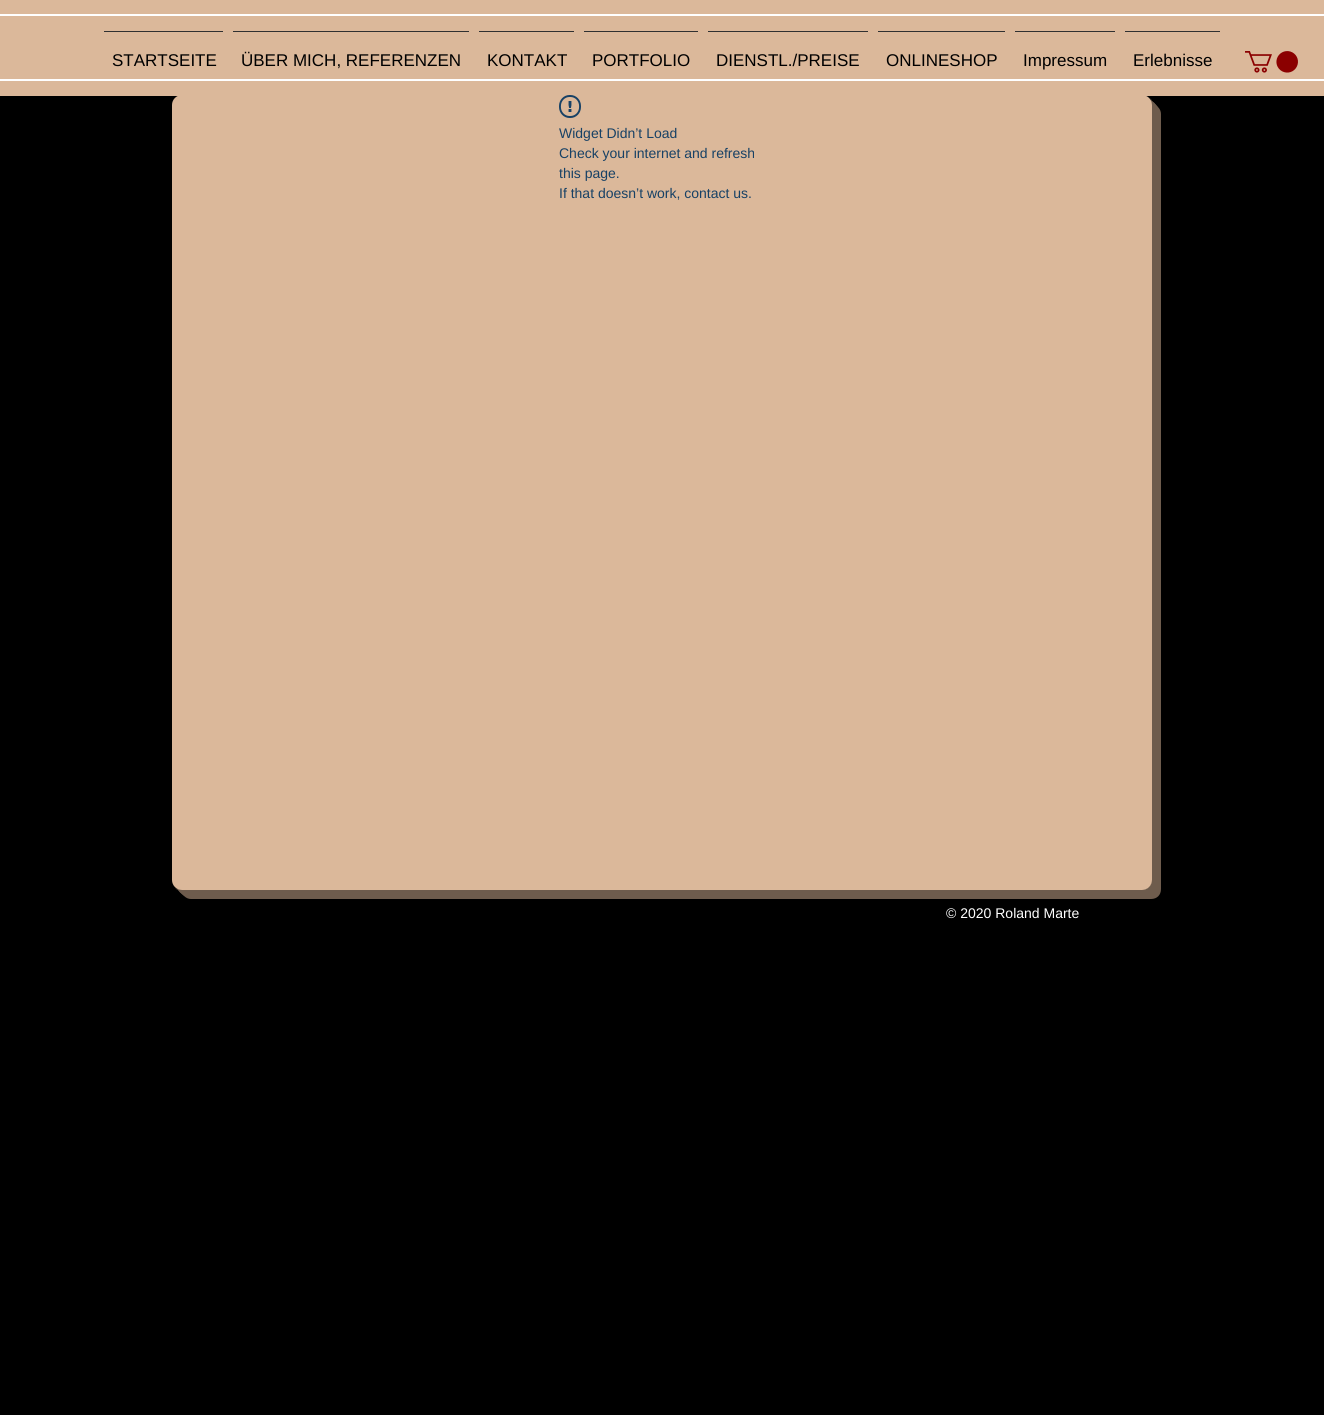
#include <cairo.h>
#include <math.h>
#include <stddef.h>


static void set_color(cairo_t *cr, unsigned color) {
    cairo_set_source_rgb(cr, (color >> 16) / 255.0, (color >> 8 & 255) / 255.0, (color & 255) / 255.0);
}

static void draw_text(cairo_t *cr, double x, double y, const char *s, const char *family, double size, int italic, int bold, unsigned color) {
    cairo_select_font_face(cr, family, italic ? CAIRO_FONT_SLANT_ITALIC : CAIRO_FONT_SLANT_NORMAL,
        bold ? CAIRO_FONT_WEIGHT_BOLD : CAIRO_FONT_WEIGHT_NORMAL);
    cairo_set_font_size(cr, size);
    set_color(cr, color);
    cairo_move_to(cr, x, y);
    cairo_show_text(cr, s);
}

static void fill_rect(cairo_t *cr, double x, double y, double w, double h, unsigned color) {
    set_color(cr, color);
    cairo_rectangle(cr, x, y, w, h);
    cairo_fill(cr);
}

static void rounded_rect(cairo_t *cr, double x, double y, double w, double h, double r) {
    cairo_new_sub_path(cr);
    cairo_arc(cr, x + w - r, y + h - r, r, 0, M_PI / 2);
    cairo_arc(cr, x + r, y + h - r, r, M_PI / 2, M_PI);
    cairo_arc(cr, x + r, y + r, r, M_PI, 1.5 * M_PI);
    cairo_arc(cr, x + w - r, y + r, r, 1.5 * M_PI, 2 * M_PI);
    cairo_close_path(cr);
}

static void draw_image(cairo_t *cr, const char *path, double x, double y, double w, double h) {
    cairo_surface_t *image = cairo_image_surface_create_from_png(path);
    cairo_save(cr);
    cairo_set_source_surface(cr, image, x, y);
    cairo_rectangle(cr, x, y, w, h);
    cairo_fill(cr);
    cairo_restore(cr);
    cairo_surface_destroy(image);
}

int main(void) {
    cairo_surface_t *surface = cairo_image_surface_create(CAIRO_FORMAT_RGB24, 1324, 1415);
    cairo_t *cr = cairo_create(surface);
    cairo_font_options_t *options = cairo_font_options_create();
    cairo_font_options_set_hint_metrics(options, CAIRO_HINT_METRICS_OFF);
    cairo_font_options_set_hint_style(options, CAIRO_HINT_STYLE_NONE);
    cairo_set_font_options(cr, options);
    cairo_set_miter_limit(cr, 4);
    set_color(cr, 0x000000);
    cairo_paint(cr);
    fill_rect(cr, 0, 0, 1324, 96, 0xDBB89A);
    fill_rect(cr, 0, 14, 1324, 2, 0xFFFFFF);
    fill_rect(cr, 0, 79, 1324, 2, 0xFFFFFF);
    fill_rect(cr, 104, 31, 119, 1, 0x303030);
    draw_text(cr, 112, 66, "STARTSEITE", "Liberation Sans", 17, 0, 0, 0x000000);
    fill_rect(cr, 233, 31, 236, 1, 0x303030);
    draw_text(cr, 241, 66, "ÜBER MICH, REFERENZEN", "Liberation Sans", 17, 0, 0, 0x000000);
    fill_rect(cr, 479, 31, 95, 1, 0x303030);
    draw_text(cr, 487, 66, "KONTAKT", "Liberation Sans", 17, 0, 0, 0x000000);
    fill_rect(cr, 584, 31, 114, 1, 0x303030);
    draw_text(cr, 592, 66, "PORTFOLIO", "Liberation Sans", 17, 0, 0, 0x000000);
    fill_rect(cr, 708, 31, 160, 1, 0x303030);
    draw_text(cr, 716, 66, "DIENSTL./PREISE", "Liberation Sans", 17, 0, 0, 0x000000);
    fill_rect(cr, 878, 31, 127, 1, 0x303030);
    draw_text(cr, 886, 66, "ONLINESHOP", "Liberation Sans", 17, 0, 0, 0x000000);
    fill_rect(cr, 1015, 31, 100, 1, 0x303030);
    draw_text(cr, 1023, 66, "Impressum", "Liberation Sans", 17, 0, 0, 0x000000);
    fill_rect(cr, 1125, 31, 95, 1, 0x303030);
    draw_text(cr, 1133, 66, "Erlebnisse", "Liberation Sans", 17, 0, 0, 0x000000);
    draw_image(cr, "assets/img1.png", 1245, 51, 53, 22);
    set_color(cr, 0x6E5C4D);
    cairo_new_path(cr);
    cairo_move_to(cr, 181, 890);
    cairo_curve_to(cr, 182, 895, 186, 899, 191, 899);
    cairo_line_to(cr, 1151, 899);
    cairo_curve_to(cr, 1157, 899, 1161, 895, 1161, 889);
    cairo_line_to(cr, 1161, 114);
    cairo_curve_to(cr, 1161, 109, 1157, 105, 1152, 104);
    cairo_line_to(cr, 1152, 880);
    cairo_curve_to(cr, 1152, 885, 1147, 890, 1142, 890);
    cairo_close_path(cr);
    cairo_fill(cr);
    cairo_new_path(cr);
    cairo_move_to(cr, 179, 890);
    cairo_curve_to(cr, 181, 894, 184, 897, 189, 897);
    cairo_line_to(cr, 1149, 897);
    cairo_curve_to(cr, 1155, 897, 1159, 893, 1159, 887);
    cairo_line_to(cr, 1159, 112);
    cairo_curve_to(cr, 1159, 107, 1156, 104, 1152, 102);
    cairo_line_to(cr, 1152, 105);
    cairo_line_to(cr, 1152, 880);
    cairo_curve_to(cr, 1152, 886, 1148, 890, 1142, 890);
    cairo_line_to(cr, 182, 890);
    cairo_close_path(cr);
    cairo_fill(cr);
    cairo_new_path(cr);
    cairo_move_to(cr, 178, 889);
    cairo_curve_to(cr, 179, 893, 183, 895, 187, 895);
    cairo_line_to(cr, 1147, 895);
    cairo_curve_to(cr, 1153, 895, 1157, 891, 1157, 885);
    cairo_line_to(cr, 1157, 110);
    cairo_curve_to(cr, 1157, 106, 1155, 102, 1151, 101);
    cairo_line_to(cr, 1152, 105);
    cairo_line_to(cr, 1152, 880);
    cairo_curve_to(cr, 1152, 886, 1148, 890, 1142, 890);
    cairo_line_to(cr, 182, 890);
    cairo_close_path(cr);
    cairo_fill(cr);
    cairo_new_path(cr);
    cairo_move_to(cr, 177, 888);
    cairo_curve_to(cr, 178, 891, 181, 893, 185, 893);
    cairo_line_to(cr, 1145, 893);
    cairo_curve_to(cr, 1151, 893, 1155, 889, 1155, 883);
    cairo_line_to(cr, 1155, 108);
    cairo_curve_to(cr, 1155, 104, 1153, 101, 1150, 100);
    cairo_curve_to(cr, 1151, 101, 1152, 103, 1152, 105);
    cairo_line_to(cr, 1152, 880);
    cairo_curve_to(cr, 1152, 886, 1148, 890, 1142, 890);
    cairo_line_to(cr, 182, 890);
    cairo_curve_to(cr, 180, 890, 178, 889, 177, 888);
    cairo_close_path(cr);
    cairo_fill(cr);
    cairo_new_path(cr);
    cairo_move_to(cr, 175, 888);
    cairo_curve_to(cr, 177, 890, 180, 891, 183, 891);
    cairo_line_to(cr, 1143, 891);
    cairo_curve_to(cr, 1149, 891, 1153, 887, 1153, 881);
    cairo_line_to(cr, 1153, 106);
    cairo_curve_to(cr, 1153, 103, 1152, 100, 1150, 98);
    cairo_curve_to(cr, 1151, 100, 1152, 102, 1152, 105);
    cairo_line_to(cr, 1152, 880);
    cairo_curve_to(cr, 1152, 886, 1148, 890, 1142, 890);
    cairo_line_to(cr, 182, 890);
    cairo_curve_to(cr, 179, 890, 177, 889, 175, 888);
    cairo_close_path(cr);
    cairo_fill(cr);
    set_color(cr, 0xDBB89A);
    rounded_rect(cr, 172, 95, 980, 795, 10);
    cairo_fill(cr);
    draw_image(cr, "assets/img2.png", 559, 95, 22, 23);
    draw_text(cr, 559, 138, "Widget Didn’t Load", "Liberation Sans", 14, 0, 0, 0x174165);
    draw_text(cr, 559, 158, "Check your internet and refresh", "Liberation Sans", 14, 0, 0, 0x174165);
    draw_text(cr, 559, 178, "this page.", "Liberation Sans", 14, 0, 0, 0x174165);
    draw_text(cr, 559, 198, "If that doesn’t work, contact us.", "Liberation Sans", 14, 0, 0, 0x174165);
    draw_text(cr, 946, 918, "© 2020 Roland Marte", "Liberation Sans", 14, 0, 0, 0xFFFFFF);
    cairo_surface_write_to_png(surface, "output.png");
    cairo_font_options_destroy(options);
    cairo_destroy(cr);
    cairo_surface_destroy(surface);
    return 0;
}
